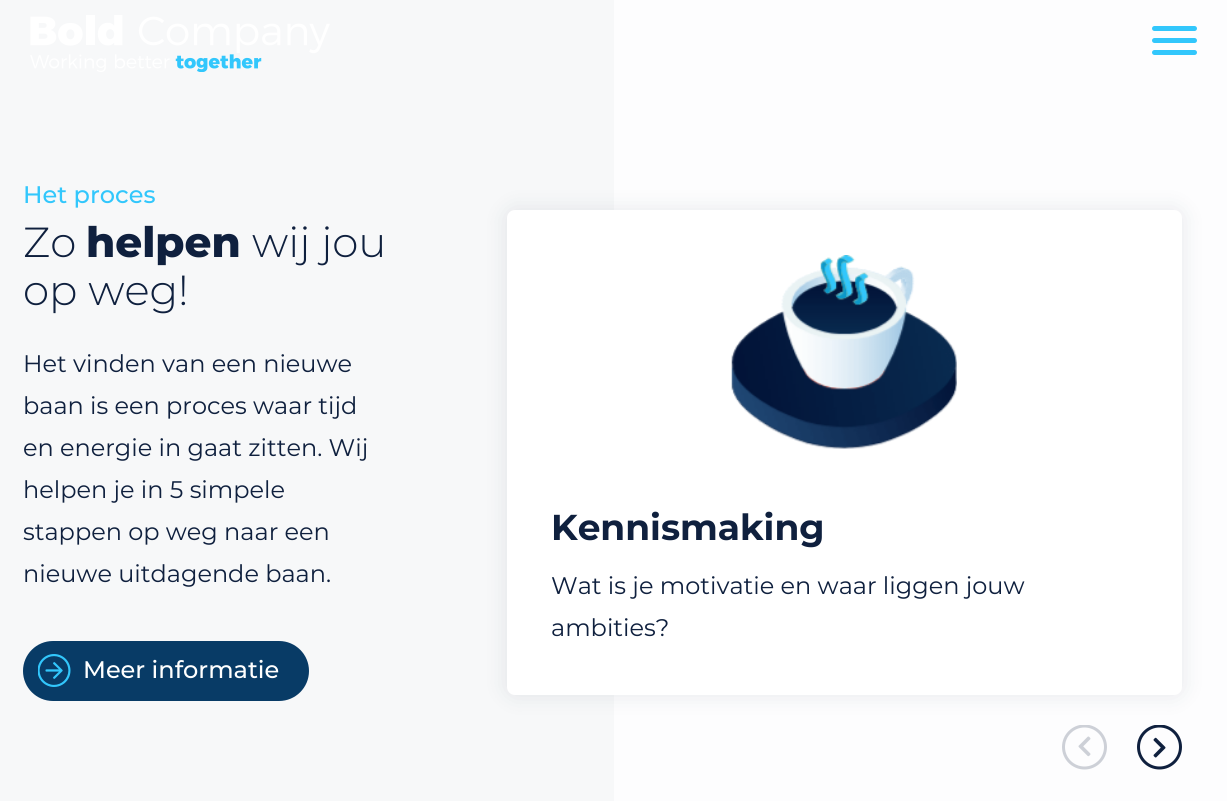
#include <cairo.h>
#include <math.h>
#include <stddef.h>


static void set_color(cairo_t *cr, unsigned color) {
    cairo_set_source_rgb(cr, (color >> 16) / 255.0, (color >> 8 & 255) / 255.0, (color & 255) / 255.0);
}

static void draw_text(cairo_t *cr, double x, double y, const char *s, const char *family, double size, int italic, int bold, unsigned color) {
    cairo_select_font_face(cr, family, italic ? CAIRO_FONT_SLANT_ITALIC : CAIRO_FONT_SLANT_NORMAL,
        bold ? CAIRO_FONT_WEIGHT_BOLD : CAIRO_FONT_WEIGHT_NORMAL);
    cairo_set_font_size(cr, size);
    set_color(cr, color);
    cairo_move_to(cr, x, y);
    cairo_show_text(cr, s);
}

static void fill_rect(cairo_t *cr, double x, double y, double w, double h, unsigned color) {
    set_color(cr, color);
    cairo_rectangle(cr, x, y, w, h);
    cairo_fill(cr);
}

static void rounded_rect(cairo_t *cr, double x, double y, double w, double h, double r) {
    cairo_new_sub_path(cr);
    cairo_arc(cr, x + w - r, y + h - r, r, 0, M_PI / 2);
    cairo_arc(cr, x + r, y + h - r, r, M_PI / 2, M_PI);
    cairo_arc(cr, x + r, y + r, r, M_PI, 1.5 * M_PI);
    cairo_arc(cr, x + w - r, y + r, r, 1.5 * M_PI, 2 * M_PI);
    cairo_close_path(cr);
}

static void draw_shadow(cairo_t *cr, double x, double y, double w, double h, double r, double blur, double alpha) {
    cairo_push_group_with_content(cr, CAIRO_CONTENT_ALPHA);
    cairo_set_operator(cr, CAIRO_OPERATOR_SOURCE);
    for (int i = 15; i >= -15 && fmin(w, h) + blur * i / 3 > 0; i -= 2) {
        double e = blur * i / 6;
        cairo_set_source_rgba(cr, 0, 0, 0, alpha * erfc((i - 1) / 8.5) / 2);
        rounded_rect(cr, x - e, y - e, w + 2 * e, h + 2 * e, fmax(0, fmin(r + e + blur * .6, fmin(w, h) / 2 + e)));
        cairo_fill(cr);
    }
    cairo_pattern_t *soft = cairo_pop_group(cr);
    cairo_mask(cr, soft);
    cairo_pattern_destroy(soft);
}

static void draw_image(cairo_t *cr, const char *path, double x, double y, double w, double h) {
    cairo_surface_t *image = cairo_image_surface_create_from_png(path);
    cairo_save(cr);
    cairo_set_source_surface(cr, image, x, y);
    cairo_rectangle(cr, x, y, w, h);
    cairo_fill(cr);
    cairo_restore(cr);
    cairo_surface_destroy(image);
}

int main(void) {
    cairo_surface_t *surface = cairo_image_surface_create(CAIRO_FORMAT_RGB24, 1227, 801);
    cairo_t *cr = cairo_create(surface);
    cairo_font_options_t *options = cairo_font_options_create();
    cairo_font_options_set_hint_metrics(options, CAIRO_HINT_METRICS_OFF);
    cairo_font_options_set_hint_style(options, CAIRO_HINT_STYLE_NONE);
    cairo_set_font_options(cr, options);
    cairo_set_miter_limit(cr, 4);
    set_color(cr, 0xF7F8F9);
    cairo_paint(cr);
    draw_image(cr, "assets/img1.png", 30, 15, 300, 57);
    fill_rect(cr, 614, 0, 613, 801, 0xFDFDFE);
    set_color(cr, 0x32C7FC);
    rounded_rect(cr, 1152, 38, 45, 5, 2.5);
    cairo_fill(cr);
    rounded_rect(cr, 1152, 26, 45, 5, 2.5);
    cairo_fill(cr);
    rounded_rect(cr, 1152, 50, 45, 5, 2.5);
    cairo_fill(cr);
    draw_text(cr, 23, 203, "Het proces", "Montserrat Medium", 24, 0, 0, 0x32C7FC);
    draw_text(cr, 23, 257, "Zo", "Montserrat Light", 42, 0, 0, 0x0F203E);
    draw_text(cr, 86, 257, "helpen", "Montserrat ExtraBold", 42, 0, 0, 0x0F203E);
    draw_text(cr, 252, 257, "wij jou", "Montserrat Light", 42, 0, 0, 0x0F203E);
    draw_text(cr, 23, 305, "op weg!", "Montserrat Light", 42, 0, 0, 0x0F203E);
    draw_text(cr, 23, 372, "Het vinden van een nieuwe", "Montserrat", 24, 0, 0, 0x0F203E);
    draw_text(cr, 23, 414, "baan is een proces waar tijd", "Montserrat", 24, 0, 0, 0x0F203E);
    draw_text(cr, 23, 456, "en energie in gaat zitten. Wij", "Montserrat", 24, 0, 0, 0x0F203E);
    draw_text(cr, 23, 498, "helpen je in 5 simpele", "Montserrat", 24, 0, 0, 0x0F203E);
    draw_text(cr, 23, 540, "stappen op weg naar een", "Montserrat", 24, 0, 0, 0x0F203E);
    draw_text(cr, 23, 582, "nieuwe uitdagende baan.", "Montserrat", 24, 0, 0, 0x0F203E);
    set_color(cr, 0x083B66);
    rounded_rect(cr, 23, 641, 286, 60, 30);
    cairo_fill(cr);
    draw_image(cr, "assets/img2.png", 38, 654, 33, 33);
    draw_text(cr, 83, 678, "Meer informatie", "Montserrat Medium", 24, 0, 0, 0xFFFFFF);
    draw_image(cr, "assets/img5.png", 1137, 725, 45, 45);
    set_color(cr, 0x0F203E);
    draw_shadow(cr, 507, 210, 675, 485, 8, 11, 0.1);
    set_color(cr, 0xFFFFFF);
    rounded_rect(cr, 507, 210, 675, 485, 8);
    cairo_fill(cr);
    draw_image(cr, "assets/img3.png", 731, 255, 226, 194);
    draw_text(cr, 551, 540, "Kennismaking", "Montserrat", 36, 0, 1, 0x0F203E);
    draw_text(cr, 551, 594, "Wat is je motivatie en waar liggen jouw", "Montserrat", 24, 0, 0, 0x0F203E);
    draw_text(cr, 551, 636, "ambities?", "Montserrat", 24, 0, 0, 0x0F203E);
    draw_image(cr, "assets/img4.png", 1062, 725, 45, 45);
    cairo_surface_write_to_png(surface, "output.png");
    cairo_font_options_destroy(options);
    cairo_destroy(cr);
    cairo_surface_destroy(surface);
    return 0;
}
